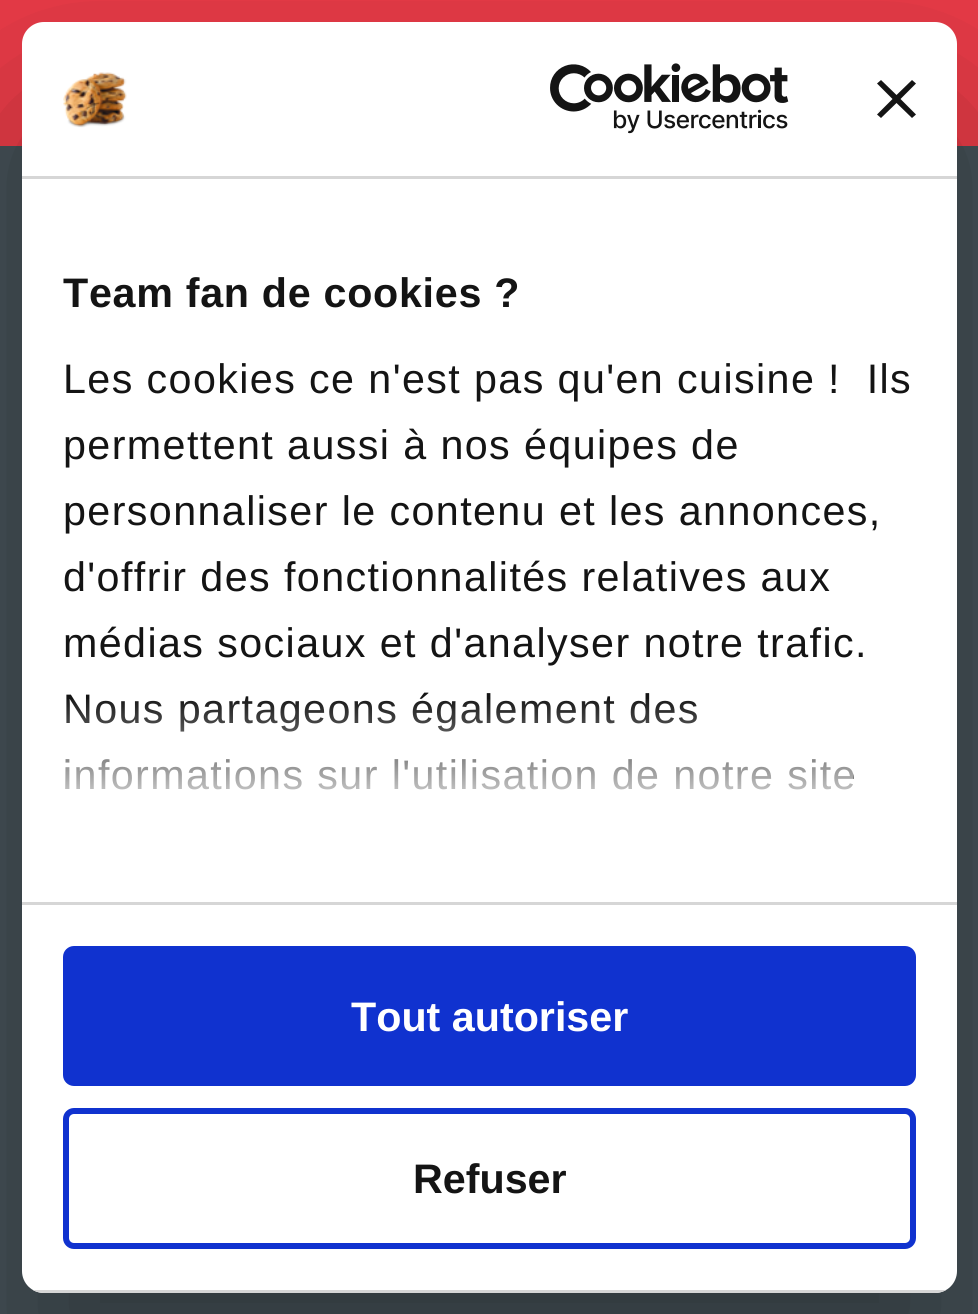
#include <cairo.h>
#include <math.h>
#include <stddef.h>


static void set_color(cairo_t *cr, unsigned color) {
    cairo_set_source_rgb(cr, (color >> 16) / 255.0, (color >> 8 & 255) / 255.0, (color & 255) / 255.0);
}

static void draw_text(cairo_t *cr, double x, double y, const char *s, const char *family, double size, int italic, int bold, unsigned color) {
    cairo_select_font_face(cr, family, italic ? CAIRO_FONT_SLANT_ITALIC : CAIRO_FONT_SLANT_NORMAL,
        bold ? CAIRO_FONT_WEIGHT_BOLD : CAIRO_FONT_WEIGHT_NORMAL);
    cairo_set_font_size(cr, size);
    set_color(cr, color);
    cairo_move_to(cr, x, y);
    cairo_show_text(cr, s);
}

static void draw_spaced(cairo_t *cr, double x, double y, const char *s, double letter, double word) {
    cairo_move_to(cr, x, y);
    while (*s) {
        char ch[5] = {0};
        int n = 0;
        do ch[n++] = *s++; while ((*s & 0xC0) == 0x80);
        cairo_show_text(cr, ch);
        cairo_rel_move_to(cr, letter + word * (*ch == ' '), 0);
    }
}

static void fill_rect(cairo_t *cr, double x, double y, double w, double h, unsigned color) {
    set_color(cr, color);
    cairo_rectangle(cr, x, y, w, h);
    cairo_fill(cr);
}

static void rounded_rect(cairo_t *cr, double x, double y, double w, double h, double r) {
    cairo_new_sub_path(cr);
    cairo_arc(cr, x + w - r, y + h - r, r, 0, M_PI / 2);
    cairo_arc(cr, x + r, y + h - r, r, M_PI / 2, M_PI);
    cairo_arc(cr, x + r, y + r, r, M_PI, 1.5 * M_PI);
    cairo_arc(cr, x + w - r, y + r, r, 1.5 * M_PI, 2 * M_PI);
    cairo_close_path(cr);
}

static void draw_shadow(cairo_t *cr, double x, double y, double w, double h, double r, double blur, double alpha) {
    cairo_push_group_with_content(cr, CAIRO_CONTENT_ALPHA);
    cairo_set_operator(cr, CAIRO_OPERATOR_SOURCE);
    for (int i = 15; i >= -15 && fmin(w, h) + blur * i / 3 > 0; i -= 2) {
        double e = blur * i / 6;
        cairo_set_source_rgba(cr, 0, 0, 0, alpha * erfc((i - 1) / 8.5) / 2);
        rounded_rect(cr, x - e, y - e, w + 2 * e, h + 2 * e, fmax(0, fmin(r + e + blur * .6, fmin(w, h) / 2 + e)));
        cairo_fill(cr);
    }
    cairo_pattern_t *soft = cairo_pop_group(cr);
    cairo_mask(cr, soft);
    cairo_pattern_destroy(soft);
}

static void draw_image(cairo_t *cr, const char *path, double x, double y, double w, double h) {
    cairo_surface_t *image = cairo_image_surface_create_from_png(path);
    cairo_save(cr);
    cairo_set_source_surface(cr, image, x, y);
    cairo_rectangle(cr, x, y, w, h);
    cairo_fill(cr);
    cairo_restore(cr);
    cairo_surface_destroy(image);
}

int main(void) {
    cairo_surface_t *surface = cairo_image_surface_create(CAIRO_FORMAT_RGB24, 978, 1314);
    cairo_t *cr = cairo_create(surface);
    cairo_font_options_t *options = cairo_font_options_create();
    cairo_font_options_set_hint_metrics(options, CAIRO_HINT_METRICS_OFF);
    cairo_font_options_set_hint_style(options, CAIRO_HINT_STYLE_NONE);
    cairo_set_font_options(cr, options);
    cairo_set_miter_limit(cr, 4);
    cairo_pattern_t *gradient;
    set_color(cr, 0x445056);
    cairo_paint(cr);
    fill_rect(cr, 0, 0, 978, 146, 0xE83B47);
    set_color(cr, 0x000000);
    draw_shadow(cr, 22, 110, 935, 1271, 22, 93.5, 0.3);
    set_color(cr, 0xFFFFFF);
    rounded_rect(cr, 22, 22, 935, 1271, 22);
    cairo_fill(cr);
    fill_rect(cr, 22, 176, 935, 3, 0xD6D6D6);
    draw_image(cr, "assets/img1.png", 63, 72, 64, 56);
    draw_image(cr, "assets/img2.png", 550, 63, 239, 71);
    set_color(cr, 0x141414);
    cairo_new_path(cr);
    cairo_move_to(cr, 916, 83.5);
    cairo_line_to(cr, 912, 80);
    cairo_line_to(cr, 896.5, 95);
    cairo_line_to(cr, 881, 80);
    cairo_line_to(cr, 877, 83.5);
    cairo_line_to(cr, 892.5, 99);
    cairo_line_to(cr, 877, 114.5);
    cairo_line_to(cr, 881, 118);
    cairo_line_to(cr, 896.5, 103);
    cairo_line_to(cr, 912, 118);
    cairo_line_to(cr, 916, 114.5);
    cairo_line_to(cr, 900.5, 99);
    cairo_close_path(cr);
    cairo_fill(cr);
    fill_rect(cr, 22, 902, 935, 3, 0xD6D6D6);
    cairo_select_font_face(cr, "Liberation Sans", CAIRO_FONT_SLANT_NORMAL, CAIRO_FONT_WEIGHT_BOLD);
    cairo_set_font_size(cr, 41.25);
    set_color(cr, 0x141414);
    draw_spaced(cr, 63, 307, "Team fan de cookies ?", 0.7, 0);
    cairo_select_font_face(cr, "Liberation Sans", CAIRO_FONT_SLANT_NORMAL, CAIRO_FONT_WEIGHT_NORMAL);
    draw_spaced(cr, 63, 393, "Les cookies ce n'est pas qu'en cuisine !  Ils", 1.4, 0);
    draw_spaced(cr, 63, 459, "permettent aussi à nos équipes de", 1.4, 0);
    draw_spaced(cr, 63, 525, "personnaliser le contenu et les annonces,", 1.4, 0);
    draw_spaced(cr, 63, 591, "d'offrir des fonctionnalités relatives aux", 1.4, 0);
    draw_spaced(cr, 63, 657, "médias sociaux et d'analyser notre trafic.", 1.4, 0);
    draw_spaced(cr, 63, 723, "Nous partageons également des", 1.4, 0);
    draw_spaced(cr, 63, 789, "informations sur l'utilisation de notre site", 1.4, 0);
    gradient = cairo_pattern_create_linear(472, 902, 472, 696);
    cairo_pattern_add_color_stop_rgba(gradient, 0, 1, 1, 1, 1);
    cairo_pattern_add_color_stop_rgba(gradient, 0.5, 1, 1, 1, 0.8);
    cairo_pattern_add_color_stop_rgba(gradient, 1, 1, 1, 1, 0);
    cairo_set_source(cr, gradient);
    cairo_pattern_destroy(gradient);
    cairo_rectangle(cr, 66, 699, 787, 91);
    cairo_fill(cr);
    cairo_save(cr);
    rounded_rect(cr, 22, 22, 935, 1271, 22);
    cairo_clip(cr);
    fill_rect(cr, 33, 1290, 913, 3, 0xD6D6D6);
    cairo_restore(cr);
    set_color(cr, 0x1032CF);
    rounded_rect(cr, 66, 949, 847, 134, 8);
    cairo_fill_preserve(cr);
    cairo_set_line_width(cr, 6);
    cairo_stroke(cr);
    draw_text(cr, 351, 1031, "Tout autoriser", "Liberation Sans", 41.25, 0, 1, 0xFFFFFF);
    rounded_rect(cr, 66, 1111, 847, 135, 8);
    set_color(cr, 0x1032CF);
    cairo_stroke(cr);
    draw_text(cr, 413, 1193, "Refuser", "Liberation Sans", 41.25, 0, 1, 0x141414);
    cairo_surface_write_to_png(surface, "output.png");
    cairo_font_options_destroy(options);
    cairo_destroy(cr);
    cairo_surface_destroy(surface);
    return 0;
}
